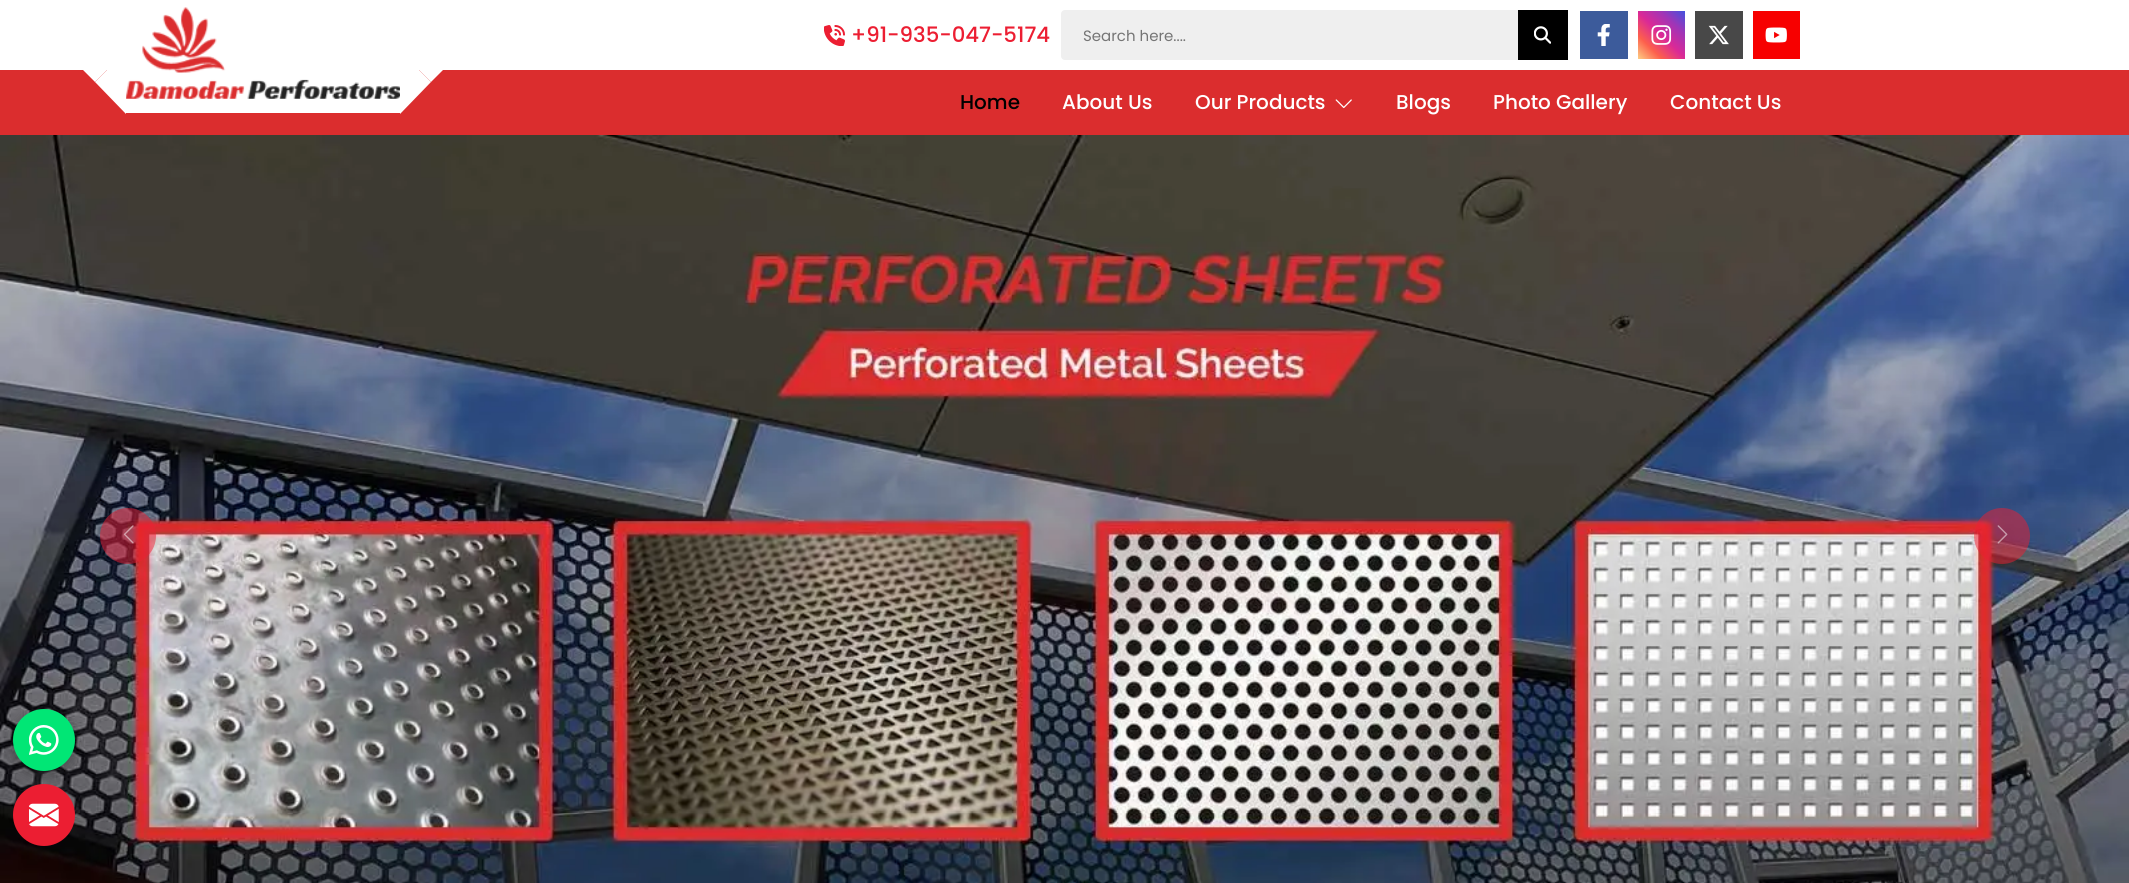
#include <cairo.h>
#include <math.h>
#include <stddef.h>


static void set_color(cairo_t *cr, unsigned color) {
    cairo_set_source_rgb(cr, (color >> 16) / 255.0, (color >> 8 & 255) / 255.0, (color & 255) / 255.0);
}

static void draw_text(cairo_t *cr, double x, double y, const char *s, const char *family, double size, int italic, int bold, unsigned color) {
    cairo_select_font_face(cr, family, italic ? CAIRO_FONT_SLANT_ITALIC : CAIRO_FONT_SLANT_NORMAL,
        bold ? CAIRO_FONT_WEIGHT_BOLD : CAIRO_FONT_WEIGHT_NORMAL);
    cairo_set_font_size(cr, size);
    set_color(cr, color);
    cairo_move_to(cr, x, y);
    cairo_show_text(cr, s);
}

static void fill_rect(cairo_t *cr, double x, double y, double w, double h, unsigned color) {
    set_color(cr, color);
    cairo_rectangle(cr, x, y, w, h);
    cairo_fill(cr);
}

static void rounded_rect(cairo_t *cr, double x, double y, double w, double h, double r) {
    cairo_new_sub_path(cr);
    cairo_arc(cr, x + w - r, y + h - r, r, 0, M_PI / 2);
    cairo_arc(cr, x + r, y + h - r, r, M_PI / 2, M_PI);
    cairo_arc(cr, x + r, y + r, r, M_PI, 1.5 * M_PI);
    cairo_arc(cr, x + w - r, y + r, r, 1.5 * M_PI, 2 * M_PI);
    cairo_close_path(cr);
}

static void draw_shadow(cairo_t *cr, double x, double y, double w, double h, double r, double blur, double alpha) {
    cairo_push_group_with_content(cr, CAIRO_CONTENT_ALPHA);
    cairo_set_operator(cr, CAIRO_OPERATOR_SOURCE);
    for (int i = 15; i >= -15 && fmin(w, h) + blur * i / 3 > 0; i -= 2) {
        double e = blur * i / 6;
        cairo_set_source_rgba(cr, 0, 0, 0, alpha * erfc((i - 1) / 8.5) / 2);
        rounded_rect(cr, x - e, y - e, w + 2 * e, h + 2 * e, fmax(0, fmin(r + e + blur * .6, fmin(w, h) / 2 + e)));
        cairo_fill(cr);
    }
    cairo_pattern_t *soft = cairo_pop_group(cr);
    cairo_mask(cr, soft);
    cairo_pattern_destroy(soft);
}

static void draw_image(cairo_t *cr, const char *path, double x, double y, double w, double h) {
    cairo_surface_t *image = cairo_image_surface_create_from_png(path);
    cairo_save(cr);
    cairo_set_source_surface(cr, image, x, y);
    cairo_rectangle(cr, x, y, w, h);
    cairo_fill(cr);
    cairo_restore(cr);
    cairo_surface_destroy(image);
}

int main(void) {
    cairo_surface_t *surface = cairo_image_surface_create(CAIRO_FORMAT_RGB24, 2129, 883);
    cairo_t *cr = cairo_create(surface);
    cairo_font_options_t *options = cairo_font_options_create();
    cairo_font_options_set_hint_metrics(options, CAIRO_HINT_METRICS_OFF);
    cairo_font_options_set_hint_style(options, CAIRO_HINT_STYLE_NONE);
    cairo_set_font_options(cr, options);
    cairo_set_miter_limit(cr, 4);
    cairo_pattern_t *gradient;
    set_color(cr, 0xFFFFFF);
    cairo_paint(cr);
    draw_image(cr, "assets/img1.png", 824, 25, 21, 21);
    draw_text(cr, 851, 42, "+91-935-047-5174", "Poppins Medium", 21.25, 0, 0, 0xEC1E32);
    set_color(cr, 0xEFEFEF);
    cairo_new_path(cr);
    cairo_move_to(cr, 1065, 11.5);
    cairo_line_to(cr, 1516.5, 11.5);
    cairo_line_to(cr, 1516.5, 58.5);
    cairo_line_to(cr, 1065, 58.5);
    cairo_curve_to(cr, 1063.5, 58.5, 1062.5, 57.5, 1062.5, 56);
    cairo_line_to(cr, 1062.5, 14);
    cairo_curve_to(cr, 1062.5, 12.5, 1063.5, 11.5, 1065, 11.5);
    cairo_close_path(cr);
    cairo_fill_preserve(cr);
    cairo_set_line_width(cr, 3);
    cairo_stroke(cr);
    draw_text(cr, 1083, 41, "Search here....", "Poppins", 15, 0, 0, 0x757575);
    fill_rect(cr, 1518, 10, 50, 50, 0x000000);
    draw_image(cr, "assets/img2.png", 1534, 26, 17, 18);
    fill_rect(cr, 1580, 11, 48, 48, 0x3C5B9B);
    draw_image(cr, "assets/img3.png", 1597, 24, 13, 22);
    gradient = cairo_pattern_create_linear(1638, 59, 1685, 11);
    cairo_pattern_add_color_stop_rgba(gradient, 0, 0.992, 0.808, 0.518, 1);
    cairo_pattern_add_color_stop_rgba(gradient, 0.25, 0.992, 0.373, 0.298, 1);
    cairo_pattern_add_color_stop_rgba(gradient, 0.5, 0.855, 0.161, 0.592, 1);
    cairo_pattern_add_color_stop_rgba(gradient, 0.75, 0.624, 0.208, 0.718, 1);
    cairo_pattern_add_color_stop_rgba(gradient, 1, 0.259, 0.322, 0.875, 1);
    cairo_set_source(cr, gradient);
    cairo_pattern_destroy(gradient);
    cairo_rectangle(cr, 1638, 11, 47, 48);
    cairo_fill(cr);
    draw_image(cr, "assets/img4.png", 1651, 25, 21, 20);
    fill_rect(cr, 1695, 11, 48, 48, 0x484848);
    draw_image(cr, "assets/img5.png", 1708, 25, 21, 20);
    fill_rect(cr, 1753, 11, 47, 48, 0xF70000);
    draw_image(cr, "assets/img6.png", 1765, 27, 22, 16);
    fill_rect(cr, 0, 70, 2129, 65, 0xDB2D2E);
    fill_rect(cr, 125, 70, 276, 43, 0xFFFFFF);
    cairo_new_path(cr);
    cairo_move_to(cr, 64, 51);
    cairo_line_to(cr, 126, 51);
    cairo_line_to(cr, 95, 82);
    cairo_close_path(cr);
    cairo_fill(cr);
    cairo_new_path(cr);
    cairo_move_to(cr, 126, 51);
    cairo_line_to(cr, 126, 114);
    cairo_line_to(cr, 95, 82);
    cairo_close_path(cr);
    cairo_fill(cr);
    draw_image(cr, "assets/img7.png", 126, 7, 274, 92);
    cairo_new_path(cr);
    cairo_move_to(cr, 400, 51);
    cairo_line_to(cr, 462, 51);
    cairo_line_to(cr, 431, 82);
    cairo_close_path(cr);
    cairo_fill(cr);
    cairo_new_path(cr);
    cairo_move_to(cr, 400, 114);
    cairo_line_to(cr, 400, 51);
    cairo_line_to(cr, 431, 82);
    cairo_close_path(cr);
    cairo_fill(cr);
    draw_text(cr, 960, 109, "Home", "Poppins Medium", 20, 0, 0, 0x000000);
    draw_text(cr, 1062, 109, "About Us", "Poppins Medium", 20, 0, 0, 0xFFFFFF);
    draw_text(cr, 1195, 109, "Our Products", "Poppins Medium", 20, 0, 0, 0xFFFFFF);
    draw_image(cr, "assets/img8.png", 1335, 99, 17, 10);
    draw_text(cr, 1396, 109, "Blogs", "Poppins Medium", 20, 0, 0, 0xFFFFFF);
    draw_text(cr, 1493, 109, "Photo Gallery", "Poppins Medium", 20, 0, 0, 0xFFFFFF);
    draw_text(cr, 1670, 109, "Contact Us", "Poppins Medium", 20, 0, 0, 0xFFFFFF);
    draw_image(cr, "assets/img9.png", 0, 135, 2129, 748);
    cairo_set_source_rgba(cr, 0.925, 0.118, 0.196, 0.5);
    cairo_arc(cr, 128, 536, 28, 0, 2 * M_PI);
    cairo_fill(cr);
    draw_image(cr, "assets/img10.png", 123, 525, 11, 19);
    cairo_arc(cr, 2002, 536, 28, 0, 2 * M_PI);
    cairo_fill(cr);
    draw_image(cr, "assets/img11.png", 1997, 525, 11, 19);
    set_color(cr, 0x000000);
    draw_shadow(cr, 13, 713, 62, 62, 31, 6, 0.16);
    draw_shadow(cr, 13, 713, 62, 62, 31, 6, 0.16);
    set_color(cr, 0x01E675);
    cairo_arc(cr, 44, 740, 31, 0, 2 * M_PI);
    cairo_fill(cr);
    draw_image(cr, "assets/img12.png", 29, 725, 30, 30);
    set_color(cr, 0xEC1E32);
    cairo_arc(cr, 44, 815, 31, 0, 2 * M_PI);
    cairo_fill(cr);
    draw_image(cr, "assets/img13.png", 29, 803, 30, 24);
    cairo_surface_write_to_png(surface, "output.png");
    cairo_font_options_destroy(options);
    cairo_destroy(cr);
    cairo_surface_destroy(surface);
    return 0;
}
